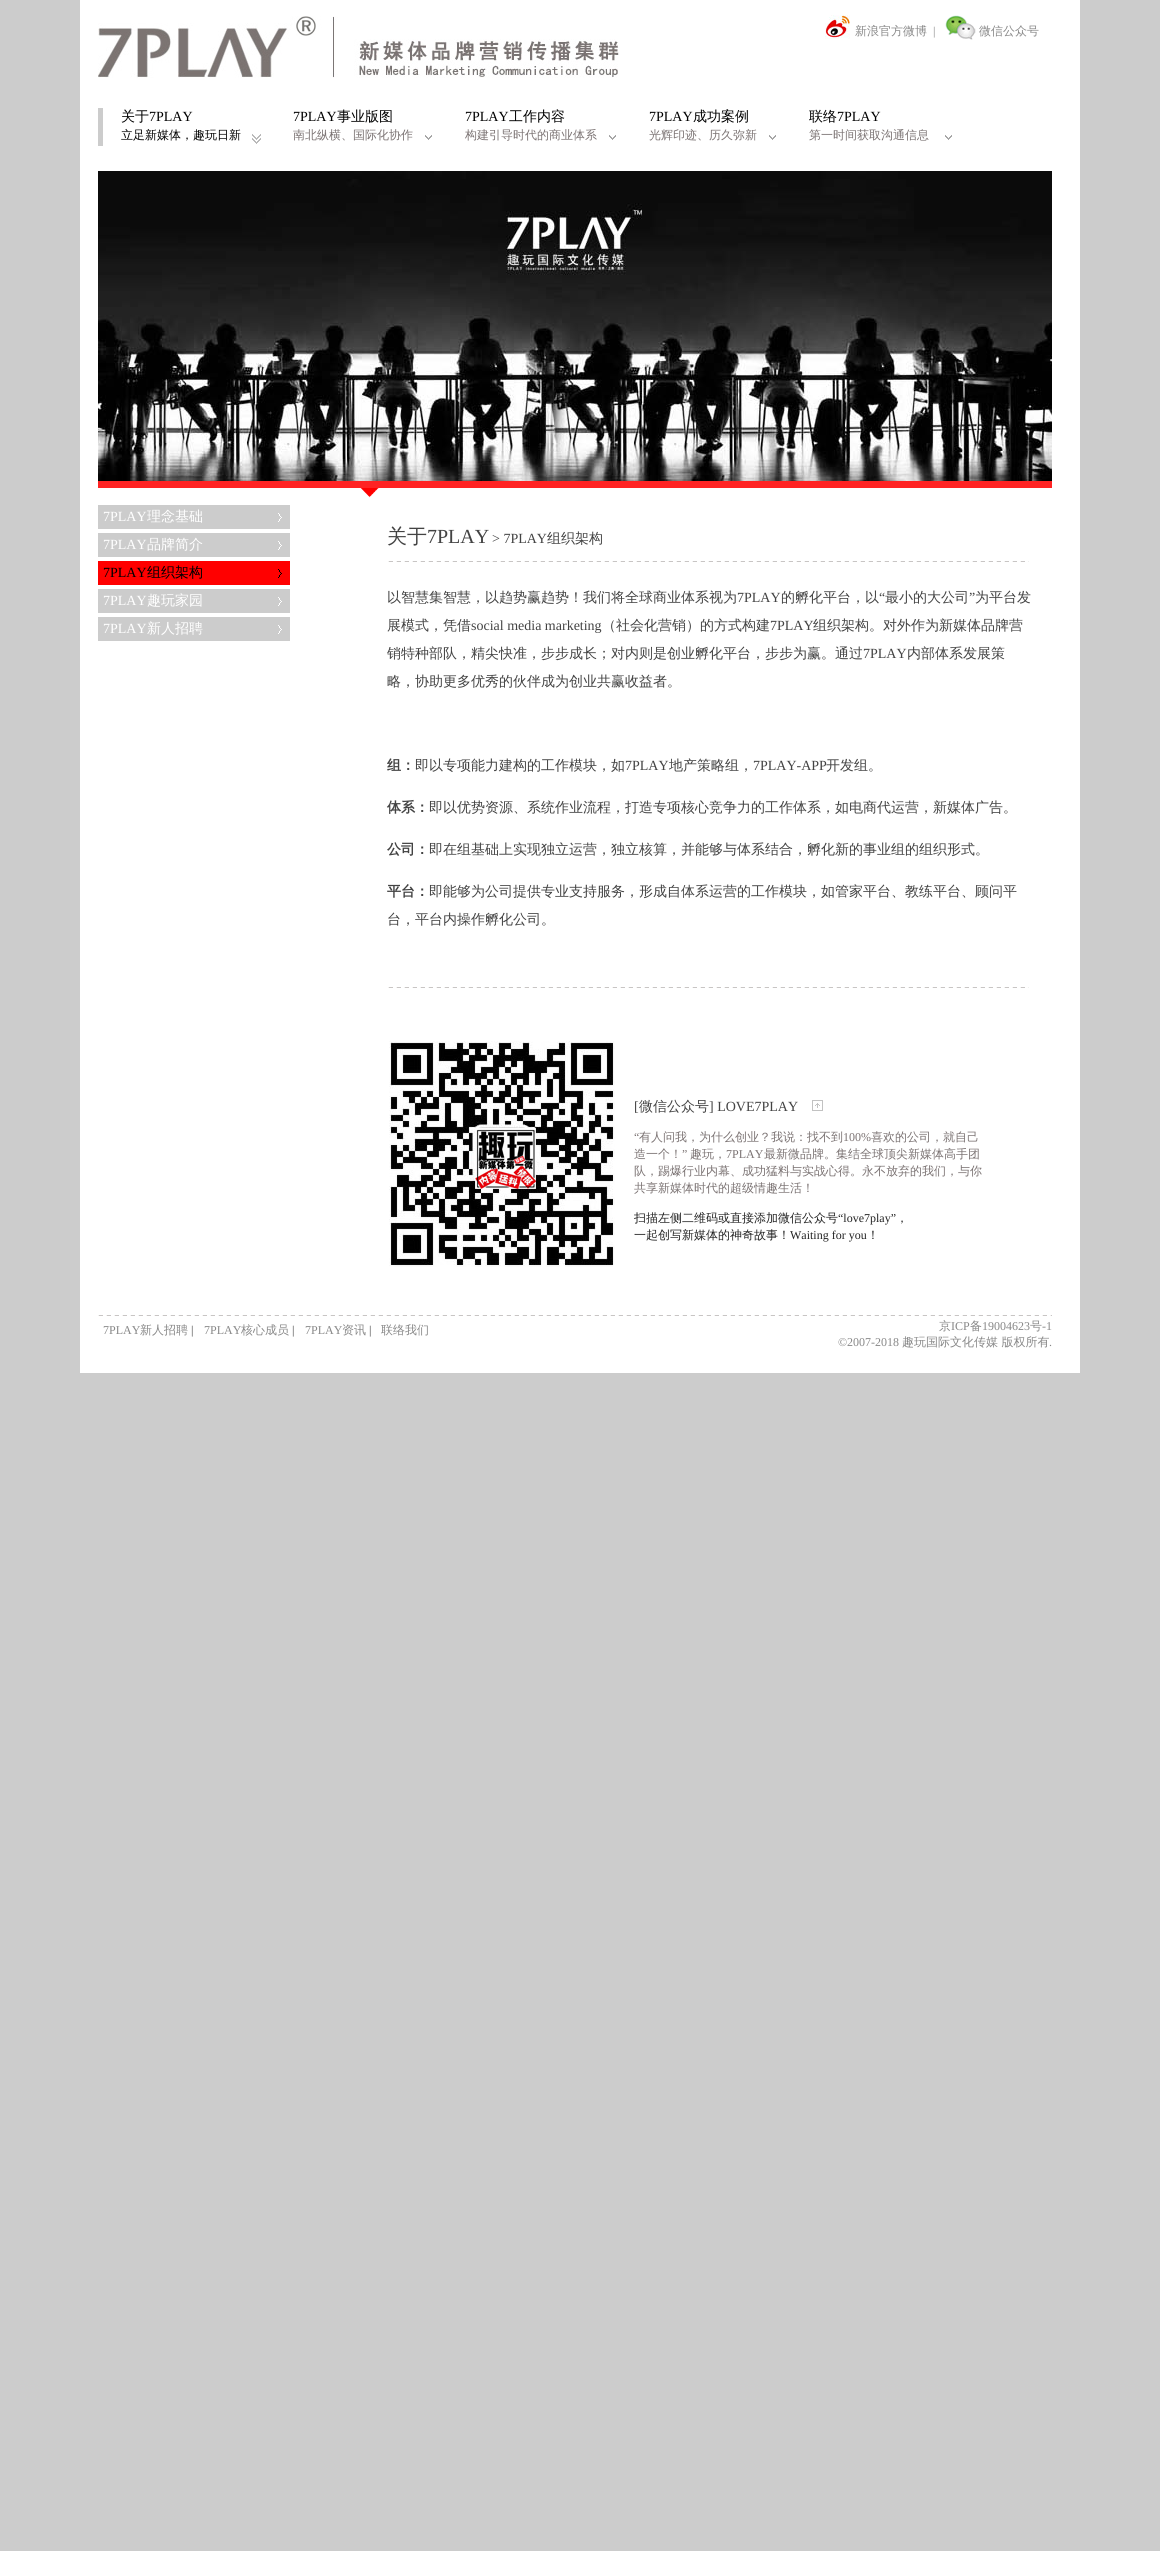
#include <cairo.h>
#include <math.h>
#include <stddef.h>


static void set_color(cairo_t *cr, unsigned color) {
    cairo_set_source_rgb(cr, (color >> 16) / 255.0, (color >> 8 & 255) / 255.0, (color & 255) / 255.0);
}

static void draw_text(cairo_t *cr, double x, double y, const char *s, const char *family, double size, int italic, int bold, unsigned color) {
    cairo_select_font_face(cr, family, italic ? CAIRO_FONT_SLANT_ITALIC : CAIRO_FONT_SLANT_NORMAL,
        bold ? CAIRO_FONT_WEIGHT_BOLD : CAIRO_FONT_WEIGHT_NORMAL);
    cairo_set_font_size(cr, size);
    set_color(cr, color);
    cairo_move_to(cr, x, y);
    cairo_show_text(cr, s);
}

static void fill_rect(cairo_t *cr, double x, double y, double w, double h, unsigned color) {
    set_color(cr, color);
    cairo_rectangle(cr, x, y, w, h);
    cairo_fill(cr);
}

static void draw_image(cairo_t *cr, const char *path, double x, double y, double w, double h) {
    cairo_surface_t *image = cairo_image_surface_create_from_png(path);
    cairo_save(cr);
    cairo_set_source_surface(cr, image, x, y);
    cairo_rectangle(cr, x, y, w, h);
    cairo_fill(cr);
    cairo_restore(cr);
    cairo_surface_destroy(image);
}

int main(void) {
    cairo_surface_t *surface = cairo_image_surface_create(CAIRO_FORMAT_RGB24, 1160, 2551);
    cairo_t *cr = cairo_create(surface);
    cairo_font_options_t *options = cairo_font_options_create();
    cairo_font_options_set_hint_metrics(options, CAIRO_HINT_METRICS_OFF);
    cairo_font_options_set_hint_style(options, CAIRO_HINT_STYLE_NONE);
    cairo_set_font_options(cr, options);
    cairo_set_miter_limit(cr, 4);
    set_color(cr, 0xCCCCCC);
    cairo_paint(cr);
    fill_rect(cr, 80, 0, 1000, 1373, 0xFFFFFF);
    draw_image(cr, "assets/img1.png", 98, 16, 521, 62);
    draw_image(cr, "assets/img2.png", 825, 15, 25, 24);
    draw_text(cr, 855, 35, "新浪官方微博", "WenQuanYi Zen Hei Medium", 12, 0, 0, 0x888888);
    draw_text(cr, 933, 35, "|", "Liberation Serif", 12, 0, 0, 0x888888);
    draw_image(cr, "assets/img3.png", 945, 15, 31, 25);
    draw_text(cr, 979, 35, "微信公众号", "WenQuanYi Zen Hei Medium", 12, 0, 0, 0x888888);
    fill_rect(cr, 98, 108, 5, 38, 0xCCCCCC);
    draw_image(cr, "assets/img4.png", 252, 134, 9, 10);
    draw_text(cr, 121, 121, "关于", "WenQuanYi Zen Hei Medium", 14, 0, 0, 0x000000);
    draw_text(cr, 149, 121, "7PLAY", "Liberation Serif", 14, 0, 0, 0x000000);
    draw_text(cr, 121, 139, "立足新媒体，趣玩日新", "WenQuanYi Zen Hei Medium", 12, 0, 0, 0x000000);
    draw_image(cr, "assets/img5.png", 425, 135, 7, 5);
    draw_text(cr, 293, 121, "7PLAY", "Liberation Serif", 14, 0, 0, 0x000000);
    draw_text(cr, 337, 121, "事业版图", "WenQuanYi Zen Hei Medium", 14, 0, 0, 0x000000);
    draw_text(cr, 293, 139, "南北纵横、国际化协作", "WenQuanYi Zen Hei Medium", 12, 0, 0, 0x7B7373);
    draw_image(cr, "assets/img5.png", 609, 135, 7, 5);
    draw_text(cr, 465, 121, "7PLAY", "Liberation Serif", 14, 0, 0, 0x000000);
    draw_text(cr, 509, 121, "工作内容", "WenQuanYi Zen Hei Medium", 14, 0, 0, 0x000000);
    draw_text(cr, 465, 139, "构建引导时代的商业体系", "WenQuanYi Zen Hei Medium", 12, 0, 0, 0x7B7373);
    draw_image(cr, "assets/img5.png", 769, 135, 7, 5);
    draw_text(cr, 649, 121, "7PLAY", "Liberation Serif", 14, 0, 0, 0x000000);
    draw_text(cr, 693, 121, "成功案例", "WenQuanYi Zen Hei Medium", 14, 0, 0, 0x000000);
    draw_text(cr, 649, 139, "光辉印迹、历久弥新", "WenQuanYi Zen Hei Medium", 12, 0, 0, 0x7B7373);
    draw_image(cr, "assets/img5.png", 945, 135, 7, 5);
    draw_text(cr, 809, 121, "联络", "WenQuanYi Zen Hei Medium", 14, 0, 0, 0x000000);
    draw_text(cr, 837, 121, "7PLAY", "Liberation Serif", 14, 0, 0, 0x000000);
    draw_text(cr, 809, 139, "第一时间获取沟通信息", "WenQuanYi Zen Hei Medium", 12, 0, 0, 0x7B7373);
    draw_image(cr, "assets/img6.png", 98, 171, 954, 310);
    fill_rect(cr, 98, 481, 954, 7, 0xFF2323);
    draw_image(cr, "assets/img7.png", 360, 488, 19, 10);
    draw_image(cr, "assets/img8.png", 98, 505, 192, 24);
    draw_text(cr, 103, 521, "7PLAY", "Liberation Serif", 14, 0, 0, 0xFFFFFF);
    draw_text(cr, 147, 521, "理念基础", "WenQuanYi Zen Hei Medium", 14, 0, 0, 0xFFFFFF);
    draw_image(cr, "assets/img8.png", 98, 533, 192, 24);
    draw_text(cr, 103, 549, "7PLAY", "Liberation Serif", 14, 0, 0, 0xFFFFFF);
    draw_text(cr, 147, 549, "品牌简介", "WenQuanYi Zen Hei Medium", 14, 0, 0, 0xFFFFFF);
    draw_image(cr, "assets/img9.png", 98, 561, 192, 24);
    draw_text(cr, 103, 577, "7PLAY", "Liberation Serif", 14, 0, 0, 0x000000);
    draw_text(cr, 147, 577, "组织架构", "WenQuanYi Zen Hei Medium", 14, 0, 0, 0x000000);
    draw_image(cr, "assets/img8.png", 98, 589, 192, 24);
    draw_text(cr, 103, 605, "7PLAY", "Liberation Serif", 14, 0, 0, 0xFFFFFF);
    draw_text(cr, 147, 605, "趣玩家园", "WenQuanYi Zen Hei Medium", 14, 0, 0, 0xFFFFFF);
    draw_image(cr, "assets/img8.png", 98, 617, 192, 24);
    draw_text(cr, 103, 633, "7PLAY", "Liberation Serif", 14, 0, 0, 0xFFFFFF);
    draw_text(cr, 147, 633, "新人招聘", "WenQuanYi Zen Hei Medium", 14, 0, 0, 0xFFFFFF);
    draw_text(cr, 387, 543, "关于", "WenQuanYi Zen Hei Medium", 20, 0, 0, 0x434343);
    draw_text(cr, 427, 543, "7PLAY", "Liberation Serif", 20, 0, 0, 0x434343);
    draw_text(cr, 492, 543, "> 7PLAY", "Liberation Serif", 14, 0, 0, 0x434343);
    draw_text(cr, 547, 543, "组织架构", "WenQuanYi Zen Hei Medium", 14, 0, 0, 0x434343);
    draw_image(cr, "assets/img10.png", 388, 561, 641, 1);
    draw_text(cr, 387, 602, "以智慧集智慧，以趋势赢趋势！我们将全球商业体系视为", "WenQuanYi Zen Hei Medium", 14, 0, 0, 0x434343);
    draw_text(cr, 737, 602, "7PLAY", "Liberation Serif", 14, 0, 0, 0x434343);
    draw_text(cr, 781, 602, "的孵化平台，以", "WenQuanYi Zen Hei Medium", 14, 0, 0, 0x434343);
    draw_text(cr, 879, 602, "“", "Liberation Serif", 14, 0, 0, 0x434343);
    draw_text(cr, 885, 602, "最小的大公司", "WenQuanYi Zen Hei Medium", 14, 0, 0, 0x434343);
    draw_text(cr, 969, 602, "”", "Liberation Serif", 14, 0, 0, 0x434343);
    draw_text(cr, 975, 602, "为平台发", "WenQuanYi Zen Hei Medium", 14, 0, 0, 0x434343);
    draw_text(cr, 387, 630, "展模式，凭借", "WenQuanYi Zen Hei Medium", 14, 0, 0, 0x434343);
    draw_text(cr, 471, 630, "social media marketing", "Liberation Serif", 14, 0, 0, 0x434343);
    draw_text(cr, 602, 630, "（社会化营销）的方式构建", "WenQuanYi Zen Hei Medium", 14, 0, 0, 0x434343);
    draw_text(cr, 770, 630, "7PLAY", "Liberation Serif", 14, 0, 0, 0x434343);
    draw_text(cr, 813, 630, "组织架构。对外作为新媒体品牌营", "WenQuanYi Zen Hei Medium", 14, 0, 0, 0x434343);
    draw_text(cr, 387, 658, "销特种部队，精尖快准，步步成长；对内则是创业孵化平台，步步为赢。通过", "WenQuanYi Zen Hei Medium", 14, 0, 0, 0x434343);
    draw_text(cr, 863, 658, "7PLAY", "Liberation Serif", 14, 0, 0, 0x434343);
    draw_text(cr, 907, 658, "内部体系发展策", "WenQuanYi Zen Hei Medium", 14, 0, 0, 0x434343);
    draw_text(cr, 387, 686, "略，协助更多优秀的伙伴成为创业共赢收益者。", "WenQuanYi Zen Hei Medium", 14, 0, 0, 0x434343);
    draw_text(cr, 387, 770, "组：", "WenQuanYi Zen Hei", 14, 0, 1, 0x434343);
    draw_text(cr, 415, 770, "即以专项能力建构的工作模块，如", "WenQuanYi Zen Hei Medium", 14, 0, 0, 0x434343);
    draw_text(cr, 625, 770, "7PLAY", "Liberation Serif", 14, 0, 0, 0x434343);
    draw_text(cr, 669, 770, "地产策略组，", "WenQuanYi Zen Hei Medium", 14, 0, 0, 0x434343);
    draw_text(cr, 753, 770, "7PLAY-APP", "Liberation Serif", 14, 0, 0, 0x434343);
    draw_text(cr, 826, 770, "开发组。", "WenQuanYi Zen Hei Medium", 14, 0, 0, 0x434343);
    draw_text(cr, 387, 812, "体系：", "WenQuanYi Zen Hei", 14, 0, 1, 0x434343);
    draw_text(cr, 429, 812, "即以优势资源、系统作业流程，打造专项核心竞争力的工作体系，如电商代运营，新媒体广告。", "WenQuanYi Zen Hei Medium", 14, 0, 0, 0x434343);
    draw_text(cr, 387, 854, "公司：", "WenQuanYi Zen Hei", 14, 0, 1, 0x434343);
    draw_text(cr, 429, 854, "即在组基础上实现独立运营，独立核算，并能够与体系结合，孵化新的事业组的组织形式。", "WenQuanYi Zen Hei Medium", 14, 0, 0, 0x434343);
    draw_text(cr, 387, 896, "平台：", "WenQuanYi Zen Hei", 14, 0, 1, 0x434343);
    draw_text(cr, 429, 896, "即能够为公司提供专业支持服务，形成自体系运营的工作模块，如管家平台、教练平台、顾问平", "WenQuanYi Zen Hei Medium", 14, 0, 0, 0x434343);
    draw_text(cr, 387, 924, "台，平台内操作孵化公司。", "WenQuanYi Zen Hei Medium", 14, 0, 0, 0x434343);
    draw_image(cr, "assets/img10.png", 388, 987, 641, 1);
    draw_image(cr, "assets/img11.png", 389, 1041, 226, 226);
    draw_text(cr, 634, 1111, "[", "Liberation Serif", 14, 0, 0, 0x434343);
    draw_text(cr, 639, 1111, "微信公众号", "WenQuanYi Zen Hei Medium", 14, 0, 0, 0x434343);
    draw_text(cr, 709, 1111, "] LOVE7PLAY", "Liberation Serif", 14, 0, 0, 0x434343);
    draw_image(cr, "assets/img12.png", 812, 1100, 11, 11);
    draw_text(cr, 634, 1141, "“", "Liberation Serif", 12, 0, 0, 0x7B7373);
    draw_text(cr, 639, 1141, "有人问我，为什么创业？我说：找不到", "WenQuanYi Zen Hei Medium", 12, 0, 0, 0x7B7373);
    draw_text(cr, 843, 1141, "100%", "Liberation Serif", 12, 0, 0, 0x7B7373);
    draw_text(cr, 871, 1141, "喜欢的公司，就自己", "WenQuanYi Zen Hei Medium", 12, 0, 0, 0x7B7373);
    draw_text(cr, 634, 1158, "造一个！", "WenQuanYi Zen Hei Medium", 12, 0, 0, 0x7B7373);
    draw_text(cr, 682, 1158, "”", "Liberation Serif", 12, 0, 0, 0x7B7373);
    draw_text(cr, 690, 1158, "趣玩，", "WenQuanYi Zen Hei Medium", 12, 0, 0, 0x7B7373);
    draw_text(cr, 726, 1158, "7PLAY", "Liberation Serif", 12, 0, 0, 0x7B7373);
    draw_text(cr, 764, 1158, "最新微品牌。集结全球顶尖新媒体高手团", "WenQuanYi Zen Hei Medium", 12, 0, 0, 0x7B7373);
    draw_text(cr, 634, 1175, "队，踢爆行业内幕、成功猛料与实战心得。永不放弃的我们，与你", "WenQuanYi Zen Hei Medium", 12, 0, 0, 0x7B7373);
    draw_text(cr, 634, 1192, "共享新媒体时代的超级情趣生活！", "WenQuanYi Zen Hei Medium", 12, 0, 0, 0x7B7373);
    draw_text(cr, 634, 1222, "扫描左侧二维码或直接添加微信公众号", "WenQuanYi Zen Hei Medium", 12, 0, 0, 0x232323);
    draw_text(cr, 838, 1222, "“love7play”", "Liberation Serif", 12, 0, 0, 0x232323);
    draw_text(cr, 896, 1222, "，", "WenQuanYi Zen Hei Medium", 12, 0, 0, 0x232323);
    draw_text(cr, 634, 1239, "一起创写新媒体的神奇故事！", "WenQuanYi Zen Hei Medium", 12, 0, 0, 0x232323);
    draw_text(cr, 790, 1239, "Waiting for you", "Liberation Serif", 12, 0, 0, 0x232323);
    draw_text(cr, 867, 1239, "！", "WenQuanYi Zen Hei Medium", 12, 0, 0, 0x232323);
    draw_image(cr, "assets/img13.png", 98, 1315, 954, 1);
    draw_text(cr, 103, 1334, "7PLAY", "Liberation Serif", 12, 0, 0, 0x888888);
    draw_text(cr, 140, 1334, "新人招聘", "WenQuanYi Zen Hei Medium", 12, 0, 0, 0x888888);
    draw_text(cr, 191, 1334, "|", "Liberation Serif", 12, 0, 0, 0x434343);
    draw_text(cr, 204, 1334, "7PLAY", "Liberation Serif", 12, 0, 0, 0x888888);
    draw_text(cr, 241, 1334, "核心成员", "WenQuanYi Zen Hei Medium", 12, 0, 0, 0x888888);
    draw_text(cr, 292, 1334, "|", "Liberation Serif", 12, 0, 0, 0x434343);
    draw_text(cr, 305, 1334, "7PLAY", "Liberation Serif", 12, 0, 0, 0x888888);
    draw_text(cr, 342, 1334, "资讯", "WenQuanYi Zen Hei Medium", 12, 0, 0, 0x888888);
    draw_text(cr, 369, 1334, "|", "Liberation Serif", 12, 0, 0, 0x434343);
    draw_text(cr, 381, 1334, "联络我们", "WenQuanYi Zen Hei Medium", 12, 0, 0, 0x888888);
    draw_text(cr, 939, 1330, "京", "WenQuanYi Zen Hei Medium", 12, 0, 0, 0x888888);
    draw_text(cr, 951, 1330, "ICP", "Liberation Serif", 12, 0, 0, 0x888888);
    draw_text(cr, 970, 1330, "备", "WenQuanYi Zen Hei Medium", 12, 0, 0, 0x888888);
    draw_text(cr, 982, 1330, "19004623", "Liberation Serif", 12, 0, 0, 0x888888);
    draw_text(cr, 1030, 1330, "号", "WenQuanYi Zen Hei Medium", 12, 0, 0, 0x888888);
    draw_text(cr, 1042, 1330, "-1", "Liberation Serif", 12, 0, 0, 0x888888);
    draw_text(cr, 838, 1346, "©2007-2018", "Liberation Serif", 12, 0, 0, 0x888888);
    draw_text(cr, 902, 1346, "趣玩国际文化传媒 版权所有", "WenQuanYi Zen Hei Medium", 12, 0, 0, 0x888888);
    draw_text(cr, 1049, 1346, ".", "Liberation Serif", 12, 0, 0, 0x888888);
    cairo_surface_write_to_png(surface, "output.png");
    cairo_font_options_destroy(options);
    cairo_destroy(cr);
    cairo_surface_destroy(surface);
    return 0;
}
